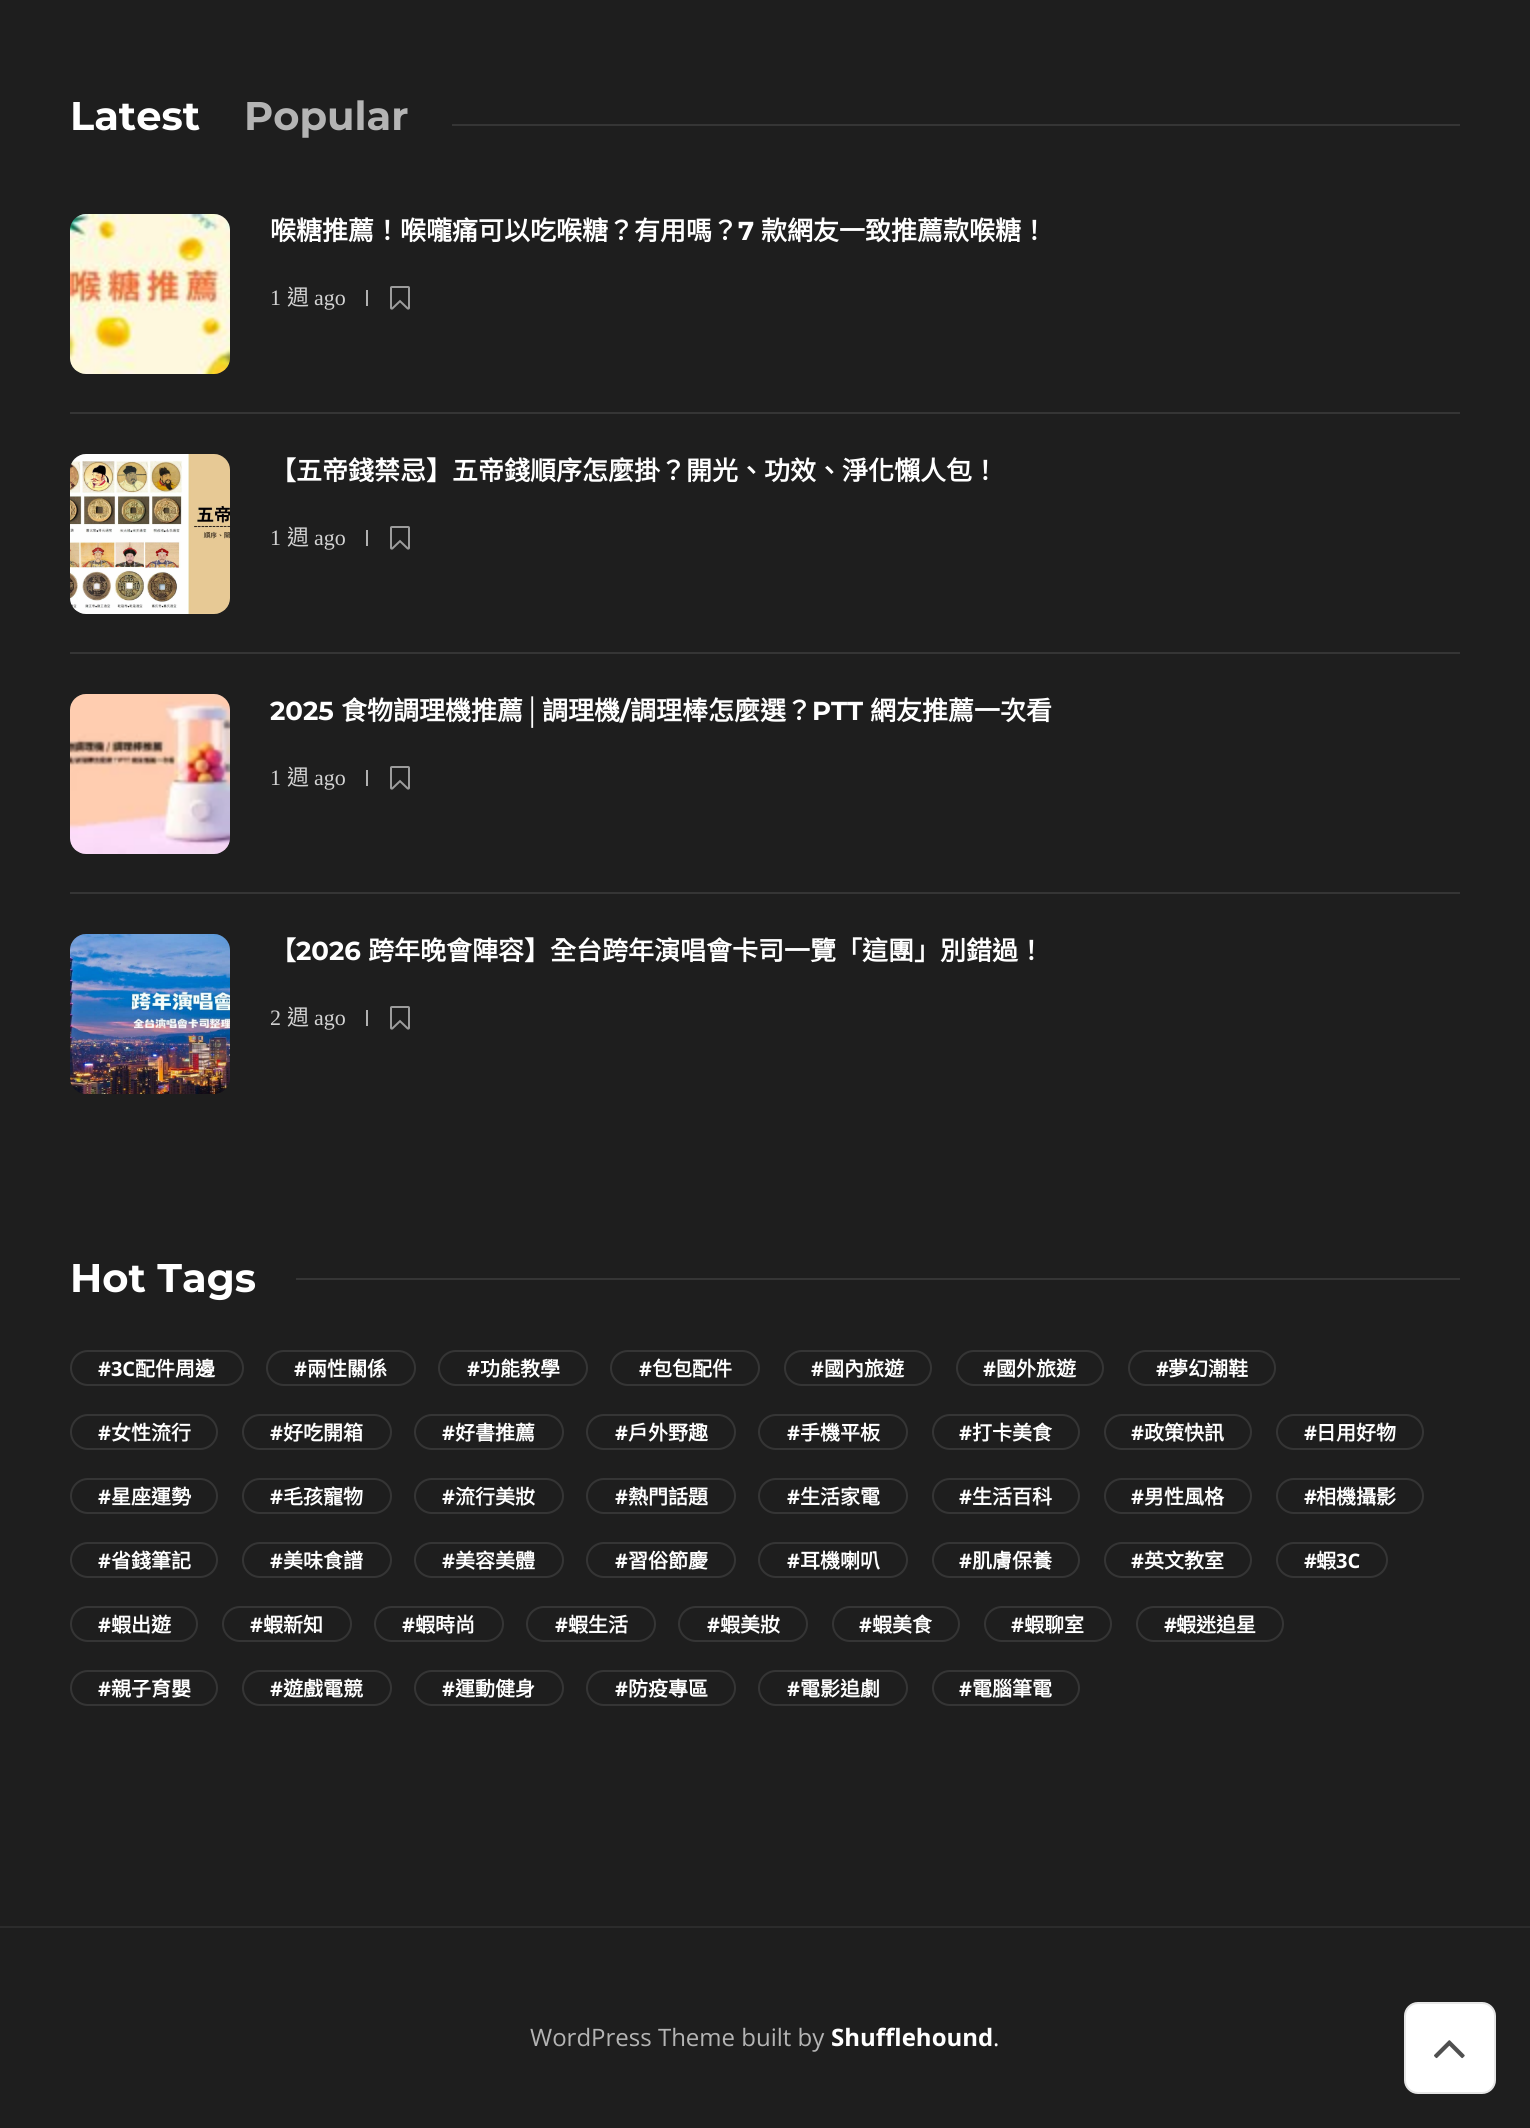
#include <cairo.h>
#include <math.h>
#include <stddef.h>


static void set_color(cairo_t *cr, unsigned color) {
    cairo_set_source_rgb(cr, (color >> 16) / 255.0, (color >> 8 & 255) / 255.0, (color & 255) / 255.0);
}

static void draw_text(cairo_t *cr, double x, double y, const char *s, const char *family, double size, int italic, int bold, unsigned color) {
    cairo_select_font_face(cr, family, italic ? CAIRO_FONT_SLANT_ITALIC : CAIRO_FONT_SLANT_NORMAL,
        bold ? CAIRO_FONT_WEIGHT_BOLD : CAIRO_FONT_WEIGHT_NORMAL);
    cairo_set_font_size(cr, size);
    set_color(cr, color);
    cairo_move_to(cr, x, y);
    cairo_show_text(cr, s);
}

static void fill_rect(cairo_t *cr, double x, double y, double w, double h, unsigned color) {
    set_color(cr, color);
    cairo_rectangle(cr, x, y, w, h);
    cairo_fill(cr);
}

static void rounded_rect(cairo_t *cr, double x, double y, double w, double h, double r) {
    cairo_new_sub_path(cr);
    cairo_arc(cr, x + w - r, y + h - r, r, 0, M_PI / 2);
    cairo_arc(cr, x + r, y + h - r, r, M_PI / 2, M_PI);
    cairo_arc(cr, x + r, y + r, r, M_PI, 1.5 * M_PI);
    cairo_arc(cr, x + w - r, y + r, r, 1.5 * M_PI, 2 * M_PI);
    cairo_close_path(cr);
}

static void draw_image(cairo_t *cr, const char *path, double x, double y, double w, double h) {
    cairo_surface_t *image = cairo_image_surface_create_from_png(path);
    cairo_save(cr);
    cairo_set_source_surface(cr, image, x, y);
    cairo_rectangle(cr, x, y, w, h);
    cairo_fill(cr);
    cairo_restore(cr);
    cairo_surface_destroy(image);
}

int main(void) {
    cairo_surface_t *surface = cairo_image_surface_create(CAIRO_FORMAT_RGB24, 1530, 2128);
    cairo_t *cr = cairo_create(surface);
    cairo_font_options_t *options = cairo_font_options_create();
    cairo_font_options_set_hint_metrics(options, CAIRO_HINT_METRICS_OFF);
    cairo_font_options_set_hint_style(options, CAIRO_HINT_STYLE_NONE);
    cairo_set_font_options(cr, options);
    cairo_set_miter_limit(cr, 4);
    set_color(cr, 0x1E1E1E);
    cairo_paint(cr);
    fill_rect(cr, 0, 1926, 1530, 2, 0x2C2C2C);
    draw_text(cr, 70, 130, "Latest", "Montserrat", 40, 0, 1, 0xFFFFFF);
    draw_text(cr, 244, 130, "Popular", "Montserrat", 40, 0, 1, 0xB4B4B4);
    fill_rect(cr, 452, 124, 1008, 2, 0x353535);
    fill_rect(cr, 70, 412, 1390, 2, 0x353535);
    draw_image(cr, "assets/img1.png", 70, 214, 160, 160);
    draw_text(cr, 270, 240, "喉糖推薦！喉嚨痛可以吃喉糖？有用嗎？", "Noto Sans CJK TC", 26, 0, 1, 0xFFFFFF);
    draw_text(cr, 738, 240, "7", "Montserrat", 26, 0, 1, 0xFFFFFF);
    draw_text(cr, 761, 240, "款網友一致推薦款喉糖！", "Noto Sans CJK TC", 26, 0, 1, 0xFFFFFF);
    draw_text(cr, 270, 305, "1", "Liberation Serif", 22, 0, 0, 0xD2D2D2);
    draw_text(cr, 287, 305, "週", "Noto Sans CJK TC", 22, 0, 0, 0xD2D2D2);
    draw_text(cr, 314, 305, "ago", "Liberation Serif", 22, 0, 0, 0xD2D2D2);
    fill_rect(cr, 366, 290, 2, 16, 0xB1B1B1);
    draw_image(cr, "assets/img2.png", 390, 286, 20, 24);
    fill_rect(cr, 70, 652, 1390, 2, 0x353535);
    draw_image(cr, "assets/img3.png", 70, 454, 160, 160);
    draw_text(cr, 270, 480, "【五帝錢禁忌】五帝錢順序怎麼掛？開光、功效、淨化懶人包！", "Noto Sans CJK TC", 26, 0, 1, 0xFFFFFF);
    draw_text(cr, 270, 545, "1", "Liberation Serif", 22, 0, 0, 0xD2D2D2);
    draw_text(cr, 287, 545, "週", "Noto Sans CJK TC", 22, 0, 0, 0xD2D2D2);
    draw_text(cr, 314, 545, "ago", "Liberation Serif", 22, 0, 0, 0xD2D2D2);
    fill_rect(cr, 366, 530, 2, 16, 0xB1B1B1);
    draw_image(cr, "assets/img2.png", 390, 526, 20, 24);
    fill_rect(cr, 70, 892, 1390, 2, 0x353535);
    draw_image(cr, "assets/img4.png", 70, 694, 160, 160);
    draw_text(cr, 270, 720, "2025", "Montserrat", 26, 0, 1, 0xFFFFFF);
    draw_text(cr, 341, 720, "食物調理機推薦", "Noto Sans CJK TC", 26, 0, 1, 0xFFFFFF);
    draw_text(cr, 523, 720, "│", "Liberation Serif", 26, 0, 1, 0xFFFFFF);
    draw_text(cr, 542, 720, "調理機", "Noto Sans CJK TC", 26, 0, 1, 0xFFFFFF);
    draw_text(cr, 620, 720, "/", "Montserrat", 26, 0, 1, 0xFFFFFF);
    draw_text(cr, 630, 720, "調理棒怎麼選？", "Noto Sans CJK TC", 26, 0, 1, 0xFFFFFF);
    draw_text(cr, 812, 720, "PTT", "Montserrat", 26, 0, 1, 0xFFFFFF);
    draw_text(cr, 870, 720, "網友推薦一次看", "Noto Sans CJK TC", 26, 0, 1, 0xFFFFFF);
    draw_text(cr, 270, 785, "1", "Liberation Serif", 22, 0, 0, 0xD2D2D2);
    draw_text(cr, 287, 785, "週", "Noto Sans CJK TC", 22, 0, 0, 0xD2D2D2);
    draw_text(cr, 314, 785, "ago", "Liberation Serif", 22, 0, 0, 0xD2D2D2);
    fill_rect(cr, 366, 770, 2, 16, 0xB1B1B1);
    draw_image(cr, "assets/img2.png", 390, 766, 20, 24);
    draw_image(cr, "assets/img5.png", 70, 934, 160, 160);
    draw_text(cr, 270, 960, "【", "Noto Sans CJK TC", 26, 0, 1, 0xFFFFFF);
    draw_text(cr, 296, 960, "2026", "Montserrat", 26, 0, 1, 0xFFFFFF);
    draw_text(cr, 368, 960, "跨年晚會陣容】全台跨年演唱會卡司一覽「這團」別錯過！", "Noto Sans CJK TC", 26, 0, 1, 0xFFFFFF);
    draw_text(cr, 270, 1025, "2", "Liberation Serif", 22, 0, 0, 0xD2D2D2);
    draw_text(cr, 287, 1025, "週", "Noto Sans CJK TC", 22, 0, 0, 0xD2D2D2);
    draw_text(cr, 314, 1025, "ago", "Liberation Serif", 22, 0, 0, 0xD2D2D2);
    fill_rect(cr, 366, 1010, 2, 16, 0xB1B1B1);
    draw_image(cr, "assets/img2.png", 390, 1006, 20, 24);
    draw_text(cr, 70, 1292, "Hot Tags", "Montserrat", 40, 0, 1, 0xFFFFFF);
    fill_rect(cr, 296, 1278, 1164, 2, 0x353535);
    rounded_rect(cr, 71, 1351, 172, 34, 17);
    cairo_stroke(cr);
    draw_text(cr, 98, 1376, "#3C", "Open Sans", 20, 0, 1, 0xFFFFFF);
    draw_text(cr, 135, 1376, "配件周邊", "Noto Sans CJK TC", 20, 0, 1, 0xFFFFFF);
    rounded_rect(cr, 267, 1351, 148, 34, 17);
    set_color(cr, 0x353535);
    cairo_stroke(cr);
    draw_text(cr, 294, 1376, "#", "Open Sans", 20, 0, 1, 0xFFFFFF);
    draw_text(cr, 307, 1376, "兩性關係", "Noto Sans CJK TC", 20, 0, 1, 0xFFFFFF);
    rounded_rect(cr, 439, 1351, 148, 34, 17);
    set_color(cr, 0x353535);
    cairo_stroke(cr);
    draw_text(cr, 467, 1376, "#", "Open Sans", 20, 0, 1, 0xFFFFFF);
    draw_text(cr, 480, 1376, "功能教學", "Noto Sans CJK TC", 20, 0, 1, 0xFFFFFF);
    rounded_rect(cr, 611, 1351, 148, 34, 17);
    set_color(cr, 0x353535);
    cairo_stroke(cr);
    draw_text(cr, 639, 1376, "#", "Open Sans", 20, 0, 1, 0xFFFFFF);
    draw_text(cr, 652, 1376, "包包配件", "Noto Sans CJK TC", 20, 0, 1, 0xFFFFFF);
    rounded_rect(cr, 785, 1351, 146, 34, 17);
    set_color(cr, 0x353535);
    cairo_stroke(cr);
    draw_text(cr, 811, 1376, "#", "Open Sans", 20, 0, 1, 0xFFFFFF);
    draw_text(cr, 824, 1376, "國內旅遊", "Noto Sans CJK TC", 20, 0, 1, 0xFFFFFF);
    rounded_rect(cr, 957, 1351, 146, 34, 17);
    set_color(cr, 0x353535);
    cairo_stroke(cr);
    draw_text(cr, 983, 1376, "#", "Open Sans", 20, 0, 1, 0xFFFFFF);
    draw_text(cr, 996, 1376, "國外旅遊", "Noto Sans CJK TC", 20, 0, 1, 0xFFFFFF);
    rounded_rect(cr, 1129, 1351, 146, 34, 17);
    set_color(cr, 0x353535);
    cairo_stroke(cr);
    draw_text(cr, 1156, 1376, "#", "Open Sans", 20, 0, 1, 0xFFFFFF);
    draw_text(cr, 1168, 1376, "夢幻潮鞋", "Noto Sans CJK TC", 20, 0, 1, 0xFFFFFF);
    rounded_rect(cr, 71, 1415, 146, 34, 17);
    set_color(cr, 0x353535);
    cairo_stroke(cr);
    draw_text(cr, 98, 1440, "#", "Open Sans", 20, 0, 1, 0xFFFFFF);
    draw_text(cr, 111, 1440, "女性流行", "Noto Sans CJK TC", 20, 0, 1, 0xFFFFFF);
    rounded_rect(cr, 243, 1415, 148, 34, 17);
    set_color(cr, 0x353535);
    cairo_stroke(cr);
    draw_text(cr, 270, 1440, "#", "Open Sans", 20, 0, 1, 0xFFFFFF);
    draw_text(cr, 283, 1440, "好吃開箱", "Noto Sans CJK TC", 20, 0, 1, 0xFFFFFF);
    rounded_rect(cr, 415, 1415, 148, 34, 17);
    set_color(cr, 0x353535);
    cairo_stroke(cr);
    draw_text(cr, 442, 1440, "#", "Open Sans", 20, 0, 1, 0xFFFFFF);
    draw_text(cr, 455, 1440, "好書推薦", "Noto Sans CJK TC", 20, 0, 1, 0xFFFFFF);
    rounded_rect(cr, 587, 1415, 148, 34, 17);
    set_color(cr, 0x353535);
    cairo_stroke(cr);
    draw_text(cr, 615, 1440, "#", "Open Sans", 20, 0, 1, 0xFFFFFF);
    draw_text(cr, 628, 1440, "戶外野趣", "Noto Sans CJK TC", 20, 0, 1, 0xFFFFFF);
    rounded_rect(cr, 759, 1415, 148, 34, 17);
    set_color(cr, 0x353535);
    cairo_stroke(cr);
    draw_text(cr, 787, 1440, "#", "Open Sans", 20, 0, 1, 0xFFFFFF);
    draw_text(cr, 800, 1440, "手機平板", "Noto Sans CJK TC", 20, 0, 1, 0xFFFFFF);
    rounded_rect(cr, 933, 1415, 146, 34, 17);
    set_color(cr, 0x353535);
    cairo_stroke(cr);
    draw_text(cr, 959, 1440, "#", "Open Sans", 20, 0, 1, 0xFFFFFF);
    draw_text(cr, 972, 1440, "打卡美食", "Noto Sans CJK TC", 20, 0, 1, 0xFFFFFF);
    rounded_rect(cr, 1105, 1415, 146, 34, 17);
    set_color(cr, 0x353535);
    cairo_stroke(cr);
    draw_text(cr, 1131, 1440, "#", "Open Sans", 20, 0, 1, 0xFFFFFF);
    draw_text(cr, 1144, 1440, "政策快訊", "Noto Sans CJK TC", 20, 0, 1, 0xFFFFFF);
    rounded_rect(cr, 1277, 1415, 146, 34, 17);
    set_color(cr, 0x353535);
    cairo_stroke(cr);
    draw_text(cr, 1304, 1440, "#", "Open Sans", 20, 0, 1, 0xFFFFFF);
    draw_text(cr, 1316, 1440, "日用好物", "Noto Sans CJK TC", 20, 0, 1, 0xFFFFFF);
    rounded_rect(cr, 71, 1479, 146, 34, 17);
    set_color(cr, 0x353535);
    cairo_stroke(cr);
    draw_text(cr, 98, 1504, "#", "Open Sans", 20, 0, 1, 0xFFFFFF);
    draw_text(cr, 111, 1504, "星座運勢", "Noto Sans CJK TC", 20, 0, 1, 0xFFFFFF);
    rounded_rect(cr, 243, 1479, 148, 34, 17);
    set_color(cr, 0x353535);
    cairo_stroke(cr);
    draw_text(cr, 270, 1504, "#", "Open Sans", 20, 0, 1, 0xFFFFFF);
    draw_text(cr, 283, 1504, "毛孩寵物", "Noto Sans CJK TC", 20, 0, 1, 0xFFFFFF);
    rounded_rect(cr, 415, 1479, 148, 34, 17);
    set_color(cr, 0x353535);
    cairo_stroke(cr);
    draw_text(cr, 442, 1504, "#", "Open Sans", 20, 0, 1, 0xFFFFFF);
    draw_text(cr, 455, 1504, "流行美妝", "Noto Sans CJK TC", 20, 0, 1, 0xFFFFFF);
    rounded_rect(cr, 587, 1479, 148, 34, 17);
    set_color(cr, 0x353535);
    cairo_stroke(cr);
    draw_text(cr, 615, 1504, "#", "Open Sans", 20, 0, 1, 0xFFFFFF);
    draw_text(cr, 628, 1504, "熱門話題", "Noto Sans CJK TC", 20, 0, 1, 0xFFFFFF);
    rounded_rect(cr, 759, 1479, 148, 34, 17);
    set_color(cr, 0x353535);
    cairo_stroke(cr);
    draw_text(cr, 787, 1504, "#", "Open Sans", 20, 0, 1, 0xFFFFFF);
    draw_text(cr, 800, 1504, "生活家電", "Noto Sans CJK TC", 20, 0, 1, 0xFFFFFF);
    rounded_rect(cr, 933, 1479, 146, 34, 17);
    set_color(cr, 0x353535);
    cairo_stroke(cr);
    draw_text(cr, 959, 1504, "#", "Open Sans", 20, 0, 1, 0xFFFFFF);
    draw_text(cr, 972, 1504, "生活百科", "Noto Sans CJK TC", 20, 0, 1, 0xFFFFFF);
    rounded_rect(cr, 1105, 1479, 146, 34, 17);
    set_color(cr, 0x353535);
    cairo_stroke(cr);
    draw_text(cr, 1131, 1504, "#", "Open Sans", 20, 0, 1, 0xFFFFFF);
    draw_text(cr, 1144, 1504, "男性風格", "Noto Sans CJK TC", 20, 0, 1, 0xFFFFFF);
    rounded_rect(cr, 1277, 1479, 146, 34, 17);
    set_color(cr, 0x353535);
    cairo_stroke(cr);
    draw_text(cr, 1304, 1504, "#", "Open Sans", 20, 0, 1, 0xFFFFFF);
    draw_text(cr, 1316, 1504, "相機攝影", "Noto Sans CJK TC", 20, 0, 1, 0xFFFFFF);
    rounded_rect(cr, 71, 1543, 146, 34, 17);
    set_color(cr, 0x353535);
    cairo_stroke(cr);
    draw_text(cr, 98, 1568, "#", "Open Sans", 20, 0, 1, 0xFFFFFF);
    draw_text(cr, 111, 1568, "省錢筆記", "Noto Sans CJK TC", 20, 0, 1, 0xFFFFFF);
    rounded_rect(cr, 243, 1543, 148, 34, 17);
    set_color(cr, 0x353535);
    cairo_stroke(cr);
    draw_text(cr, 270, 1568, "#", "Open Sans", 20, 0, 1, 0xFFFFFF);
    draw_text(cr, 283, 1568, "美味食譜", "Noto Sans CJK TC", 20, 0, 1, 0xFFFFFF);
    rounded_rect(cr, 415, 1543, 148, 34, 17);
    set_color(cr, 0x353535);
    cairo_stroke(cr);
    draw_text(cr, 442, 1568, "#", "Open Sans", 20, 0, 1, 0xFFFFFF);
    draw_text(cr, 455, 1568, "美容美體", "Noto Sans CJK TC", 20, 0, 1, 0xFFFFFF);
    rounded_rect(cr, 587, 1543, 148, 34, 17);
    set_color(cr, 0x353535);
    cairo_stroke(cr);
    draw_text(cr, 615, 1568, "#", "Open Sans", 20, 0, 1, 0xFFFFFF);
    draw_text(cr, 628, 1568, "習俗節慶", "Noto Sans CJK TC", 20, 0, 1, 0xFFFFFF);
    rounded_rect(cr, 759, 1543, 148, 34, 17);
    set_color(cr, 0x353535);
    cairo_stroke(cr);
    draw_text(cr, 787, 1568, "#", "Open Sans", 20, 0, 1, 0xFFFFFF);
    draw_text(cr, 800, 1568, "耳機喇叭", "Noto Sans CJK TC", 20, 0, 1, 0xFFFFFF);
    rounded_rect(cr, 933, 1543, 146, 34, 17);
    set_color(cr, 0x353535);
    cairo_stroke(cr);
    draw_text(cr, 959, 1568, "#", "Open Sans", 20, 0, 1, 0xFFFFFF);
    draw_text(cr, 972, 1568, "肌膚保養", "Noto Sans CJK TC", 20, 0, 1, 0xFFFFFF);
    rounded_rect(cr, 1105, 1543, 146, 34, 17);
    set_color(cr, 0x353535);
    cairo_stroke(cr);
    draw_text(cr, 1131, 1568, "#", "Open Sans", 20, 0, 1, 0xFFFFFF);
    draw_text(cr, 1144, 1568, "英文教室", "Noto Sans CJK TC", 20, 0, 1, 0xFFFFFF);
    rounded_rect(cr, 1277, 1543, 110, 34, 17);
    set_color(cr, 0x353535);
    cairo_stroke(cr);
    draw_text(cr, 1304, 1568, "#", "Open Sans", 20, 0, 1, 0xFFFFFF);
    draw_text(cr, 1316, 1568, "蝦", "Noto Sans CJK TC", 20, 0, 1, 0xFFFFFF);
    draw_text(cr, 1336, 1568, "3C", "Open Sans", 20, 0, 1, 0xFFFFFF);
    rounded_rect(cr, 71, 1607, 126, 34, 17);
    set_color(cr, 0x353535);
    cairo_stroke(cr);
    draw_text(cr, 98, 1632, "#", "Open Sans", 20, 0, 1, 0xFFFFFF);
    draw_text(cr, 111, 1632, "蝦出遊", "Noto Sans CJK TC", 20, 0, 1, 0xFFFFFF);
    rounded_rect(cr, 223, 1607, 128, 34, 17);
    set_color(cr, 0x353535);
    cairo_stroke(cr);
    draw_text(cr, 250, 1632, "#", "Open Sans", 20, 0, 1, 0xFFFFFF);
    draw_text(cr, 263, 1632, "蝦新知", "Noto Sans CJK TC", 20, 0, 1, 0xFFFFFF);
    rounded_rect(cr, 375, 1607, 128, 34, 17);
    set_color(cr, 0x353535);
    cairo_stroke(cr);
    draw_text(cr, 402, 1632, "#", "Open Sans", 20, 0, 1, 0xFFFFFF);
    draw_text(cr, 415, 1632, "蝦時尚", "Noto Sans CJK TC", 20, 0, 1, 0xFFFFFF);
    rounded_rect(cr, 527, 1607, 128, 34, 17);
    set_color(cr, 0x353535);
    cairo_stroke(cr);
    draw_text(cr, 555, 1632, "#", "Open Sans", 20, 0, 1, 0xFFFFFF);
    draw_text(cr, 568, 1632, "蝦生活", "Noto Sans CJK TC", 20, 0, 1, 0xFFFFFF);
    rounded_rect(cr, 679, 1607, 128, 34, 17);
    set_color(cr, 0x353535);
    cairo_stroke(cr);
    draw_text(cr, 707, 1632, "#", "Open Sans", 20, 0, 1, 0xFFFFFF);
    draw_text(cr, 720, 1632, "蝦美妝", "Noto Sans CJK TC", 20, 0, 1, 0xFFFFFF);
    rounded_rect(cr, 833, 1607, 126, 34, 17);
    set_color(cr, 0x353535);
    cairo_stroke(cr);
    draw_text(cr, 859, 1632, "#", "Open Sans", 20, 0, 1, 0xFFFFFF);
    draw_text(cr, 872, 1632, "蝦美食", "Noto Sans CJK TC", 20, 0, 1, 0xFFFFFF);
    rounded_rect(cr, 985, 1607, 126, 34, 17);
    set_color(cr, 0x353535);
    cairo_stroke(cr);
    draw_text(cr, 1011, 1632, "#", "Open Sans", 20, 0, 1, 0xFFFFFF);
    draw_text(cr, 1024, 1632, "蝦聊室", "Noto Sans CJK TC", 20, 0, 1, 0xFFFFFF);
    rounded_rect(cr, 1137, 1607, 146, 34, 17);
    set_color(cr, 0x353535);
    cairo_stroke(cr);
    draw_text(cr, 1164, 1632, "#", "Open Sans", 20, 0, 1, 0xFFFFFF);
    draw_text(cr, 1176, 1632, "蝦迷追星", "Noto Sans CJK TC", 20, 0, 1, 0xFFFFFF);
    rounded_rect(cr, 71, 1671, 146, 34, 17);
    set_color(cr, 0x353535);
    cairo_stroke(cr);
    draw_text(cr, 98, 1696, "#", "Open Sans", 20, 0, 1, 0xFFFFFF);
    draw_text(cr, 111, 1696, "親子育嬰", "Noto Sans CJK TC", 20, 0, 1, 0xFFFFFF);
    rounded_rect(cr, 243, 1671, 148, 34, 17);
    set_color(cr, 0x353535);
    cairo_stroke(cr);
    draw_text(cr, 270, 1696, "#", "Open Sans", 20, 0, 1, 0xFFFFFF);
    draw_text(cr, 283, 1696, "遊戲電競", "Noto Sans CJK TC", 20, 0, 1, 0xFFFFFF);
    rounded_rect(cr, 415, 1671, 148, 34, 17);
    set_color(cr, 0x353535);
    cairo_stroke(cr);
    draw_text(cr, 442, 1696, "#", "Open Sans", 20, 0, 1, 0xFFFFFF);
    draw_text(cr, 455, 1696, "運動健身", "Noto Sans CJK TC", 20, 0, 1, 0xFFFFFF);
    rounded_rect(cr, 587, 1671, 148, 34, 17);
    set_color(cr, 0x353535);
    cairo_stroke(cr);
    draw_text(cr, 615, 1696, "#", "Open Sans", 20, 0, 1, 0xFFFFFF);
    draw_text(cr, 628, 1696, "防疫專區", "Noto Sans CJK TC", 20, 0, 1, 0xFFFFFF);
    rounded_rect(cr, 759, 1671, 148, 34, 17);
    set_color(cr, 0x353535);
    cairo_stroke(cr);
    draw_text(cr, 787, 1696, "#", "Open Sans", 20, 0, 1, 0xFFFFFF);
    draw_text(cr, 800, 1696, "電影追劇", "Noto Sans CJK TC", 20, 0, 1, 0xFFFFFF);
    rounded_rect(cr, 933, 1671, 146, 34, 17);
    set_color(cr, 0x353535);
    cairo_stroke(cr);
    draw_text(cr, 959, 1696, "#", "Open Sans", 20, 0, 1, 0xFFFFFF);
    draw_text(cr, 972, 1696, "電腦筆電", "Noto Sans CJK TC", 20, 0, 1, 0xFFFFFF);
    draw_text(cr, 530, 2046, "WordPress Theme built by", "Open Sans", 24, 0, 0, 0xB4B4B4);
    draw_text(cr, 831, 2046, "Shufflehound", "Open Sans", 24, 0, 1, 0xFFFFFF);
    draw_text(cr, 993, 2046, ".", "Open Sans", 24, 0, 0, 0xFFFFFF);
    rounded_rect(cr, 1404, 2002, 92, 92, 14);
    cairo_fill(cr);
    rounded_rect(cr, 1405, 2003, 90, 90, 13);
    cairo_set_source_rgba(cr, 0, 0, 0, 0.1);
    cairo_stroke(cr);
    draw_image(cr, "assets/img6.png", 1434, 2040, 31, 19);
    cairo_surface_write_to_png(surface, "output.png");
    cairo_font_options_destroy(options);
    cairo_destroy(cr);
    cairo_surface_destroy(surface);
    return 0;
}
